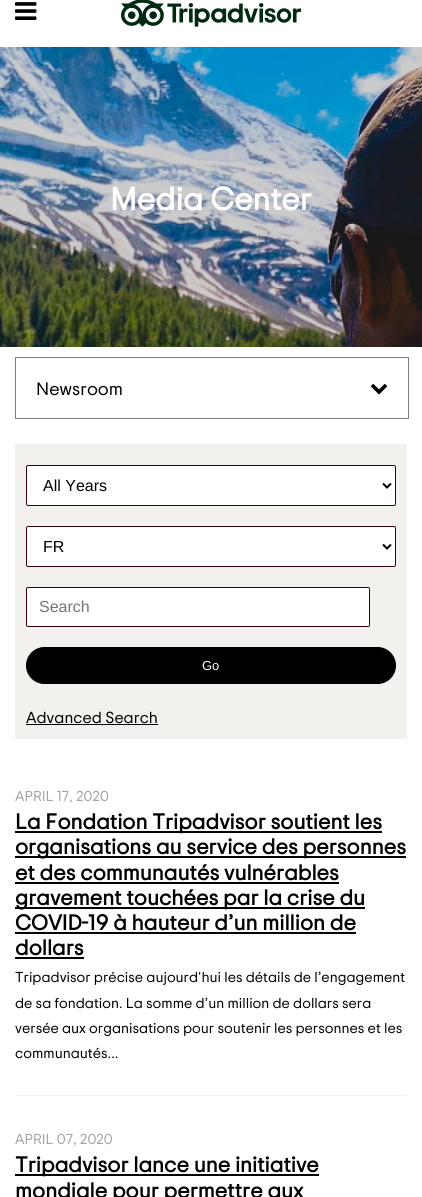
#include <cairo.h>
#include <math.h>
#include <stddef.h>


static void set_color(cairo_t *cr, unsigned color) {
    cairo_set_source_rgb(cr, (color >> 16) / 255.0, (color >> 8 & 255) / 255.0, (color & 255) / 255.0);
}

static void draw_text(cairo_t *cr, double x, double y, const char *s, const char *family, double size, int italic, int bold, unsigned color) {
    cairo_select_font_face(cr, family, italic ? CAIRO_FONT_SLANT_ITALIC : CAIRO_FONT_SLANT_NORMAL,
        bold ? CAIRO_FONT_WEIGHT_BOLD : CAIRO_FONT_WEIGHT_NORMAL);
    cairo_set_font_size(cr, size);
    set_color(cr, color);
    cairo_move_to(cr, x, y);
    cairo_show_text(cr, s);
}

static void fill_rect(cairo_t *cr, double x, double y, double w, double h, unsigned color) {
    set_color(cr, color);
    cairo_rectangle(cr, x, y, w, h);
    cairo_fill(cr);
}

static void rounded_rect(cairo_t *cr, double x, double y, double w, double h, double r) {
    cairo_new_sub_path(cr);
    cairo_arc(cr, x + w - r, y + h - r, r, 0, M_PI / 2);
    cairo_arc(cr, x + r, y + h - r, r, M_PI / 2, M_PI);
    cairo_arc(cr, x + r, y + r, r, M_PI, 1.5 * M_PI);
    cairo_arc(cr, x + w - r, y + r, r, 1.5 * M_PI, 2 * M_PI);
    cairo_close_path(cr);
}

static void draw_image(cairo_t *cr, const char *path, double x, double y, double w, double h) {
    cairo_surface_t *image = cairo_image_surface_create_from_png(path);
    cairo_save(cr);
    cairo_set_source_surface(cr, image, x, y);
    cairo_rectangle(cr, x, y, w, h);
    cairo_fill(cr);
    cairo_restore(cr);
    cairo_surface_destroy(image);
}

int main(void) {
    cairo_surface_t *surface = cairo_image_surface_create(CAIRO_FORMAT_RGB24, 422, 1197);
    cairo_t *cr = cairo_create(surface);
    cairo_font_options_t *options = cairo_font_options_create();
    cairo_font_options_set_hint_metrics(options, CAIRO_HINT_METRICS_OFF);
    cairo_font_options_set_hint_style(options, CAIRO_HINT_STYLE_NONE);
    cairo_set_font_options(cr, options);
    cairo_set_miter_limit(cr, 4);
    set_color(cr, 0xFFFFFF);
    cairo_paint(cr);
    draw_image(cr, "assets/img1.png", 15, 2, 22, 18);
    draw_image(cr, "assets/img2.png", 121, 0, 180, 27);
    draw_image(cr, "assets/img3.png", 0, 47, 422, 300);
    draw_text(cr, 110, 210, "Media Center", "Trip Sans", 32, 0, 1, 0xFFFFFF);
    cairo_rectangle(cr, 15.5, 357.5, 393, 61);
    set_color(cr, 0x808080);
    cairo_set_line_width(cr, 1);
    cairo_stroke(cr);
    draw_text(cr, 36, 395, "Newsroom", "Trip Sans", 18, 0, 0, 0x000000);
    draw_image(cr, "assets/img4.png", 370, 384, 18, 11);
    fill_rect(cr, 15, 444, 392, 295, 0xF2F1ED);
    set_color(cr, 0xFFFFFF);
    rounded_rect(cr, 26.5, 465.5, 369, 40, 1.5);
    cairo_fill_preserve(cr);
    set_color(cr, 0x330312);
    cairo_stroke(cr);
    cairo_new_path(cr);
    cairo_move_to(cr, 383, 483.5);
    cairo_line_to(cr, 387, 487.5);
    cairo_line_to(cr, 391, 483.5);
    set_color(cr, 0x000000);
    cairo_set_line_width(cr, 2);
    cairo_stroke(cr);
    draw_text(cr, 43, 491, "All Years", "Liberation Sans", 16, 0, 0, 0x000000);
    set_color(cr, 0xFFFFFF);
    rounded_rect(cr, 26.5, 526.5, 369, 40, 1.5);
    cairo_fill_preserve(cr);
    set_color(cr, 0x330312);
    cairo_set_line_width(cr, 1);
    cairo_stroke(cr);
    cairo_new_path(cr);
    cairo_move_to(cr, 383, 544.5);
    cairo_line_to(cr, 387, 548.5);
    cairo_line_to(cr, 391, 544.5);
    set_color(cr, 0x000000);
    cairo_set_line_width(cr, 2);
    cairo_stroke(cr);
    draw_text(cr, 43, 552, "FR", "Liberation Sans", 16, 0, 0, 0x000000);
    set_color(cr, 0xFFFFFF);
    rounded_rect(cr, 26.5, 587.5, 343, 39, 1.5);
    cairo_fill_preserve(cr);
    set_color(cr, 0x330312);
    cairo_set_line_width(cr, 1);
    cairo_stroke(cr);
    draw_text(cr, 39, 612, "Search", "Liberation Sans", 16, 0, 0, 0x757575);
    set_color(cr, 0x000000);
    rounded_rect(cr, 26.5, 647.5, 369, 36, 18);
    cairo_fill_preserve(cr);
    cairo_stroke(cr);
    draw_text(cr, 202, 670, "Go", "Liberation Sans", 13, 0, 0, 0xFFFFFF);
    draw_text(cr, 26, 723, "Advanced Search", "Trip Sans", 16, 0, 0, 0x000000);
    fill_rect(cr, 26, 724, 132, 1, 0x000000);
    fill_rect(cr, 15, 1095, 392, 1, 0xFAF1ED);
    draw_text(cr, 15, 801, "APRIL 17, 2020", "Trip Sans", 14.4, 0, 0, 0xA5A5A5);
    fill_rect(cr, 15, 831, 367, 2, 0x000000);
    draw_text(cr, 15, 829, "La Fondation Tripadvisor soutient les", "Trip Sans", 21.6, 0, 1, 0x000000);
    fill_rect(cr, 15, 856, 391, 2, 0x000000);
    draw_text(cr, 15, 854, "organisations au service des personnes", "Trip Sans", 21.6, 0, 1, 0x000000);
    draw_text(cr, 15, 880, "et des communautés vulnérables", "Trip Sans", 21.6, 0, 1, 0x000000);
    fill_rect(cr, 15, 882, 324, 2, 0x000000);
    fill_rect(cr, 15, 907, 350, 2, 0x000000);
    draw_text(cr, 15, 905, "gravement touchées par la crise du", "Trip Sans", 21.6, 0, 1, 0x000000);
    draw_text(cr, 15, 930, "COVID-19 à hauteur d’un million de", "Trip Sans", 21.6, 0, 1, 0x000000);
    fill_rect(cr, 15, 932, 341, 2, 0x000000);
    draw_text(cr, 15, 955, "dollars", "Trip Sans", 21.6, 0, 1, 0x000000);
    fill_rect(cr, 15, 957, 69, 2, 0x000000);
    draw_text(cr, 15, 982, "Tripadvisor précise aujourd'hui les détails de l’engagement", "Trip Sans", 14.4, 0, 0, 0x000000);
    draw_text(cr, 15, 1008, "de sa fondation. La somme d’un million de dollars sera", "Trip Sans", 14.4, 0, 0, 0x000000);
    draw_text(cr, 15, 1033, "versée aux organisations pour soutenir les personnes et les", "Trip Sans", 14.4, 0, 0, 0x000000);
    draw_text(cr, 15, 1058, "communautés...", "Trip Sans", 14.4, 0, 0, 0x000000);
    draw_text(cr, 15, 1144, "APRIL 07, 2020", "Trip Sans", 14.4, 0, 0, 0xA5A5A5);
    fill_rect(cr, 15, 1174, 304, 2, 0x000000);
    draw_text(cr, 15, 1172, "Tripadvisor lance une initiative", "Trip Sans", 21.6, 0, 1, 0x000000);
    draw_text(cr, 15, 1198, "mondiale pour permettre aux", "Trip Sans", 21.6, 0, 1, 0x000000);
    cairo_surface_write_to_png(surface, "output.png");
    cairo_font_options_destroy(options);
    cairo_destroy(cr);
    cairo_surface_destroy(surface);
    return 0;
}
